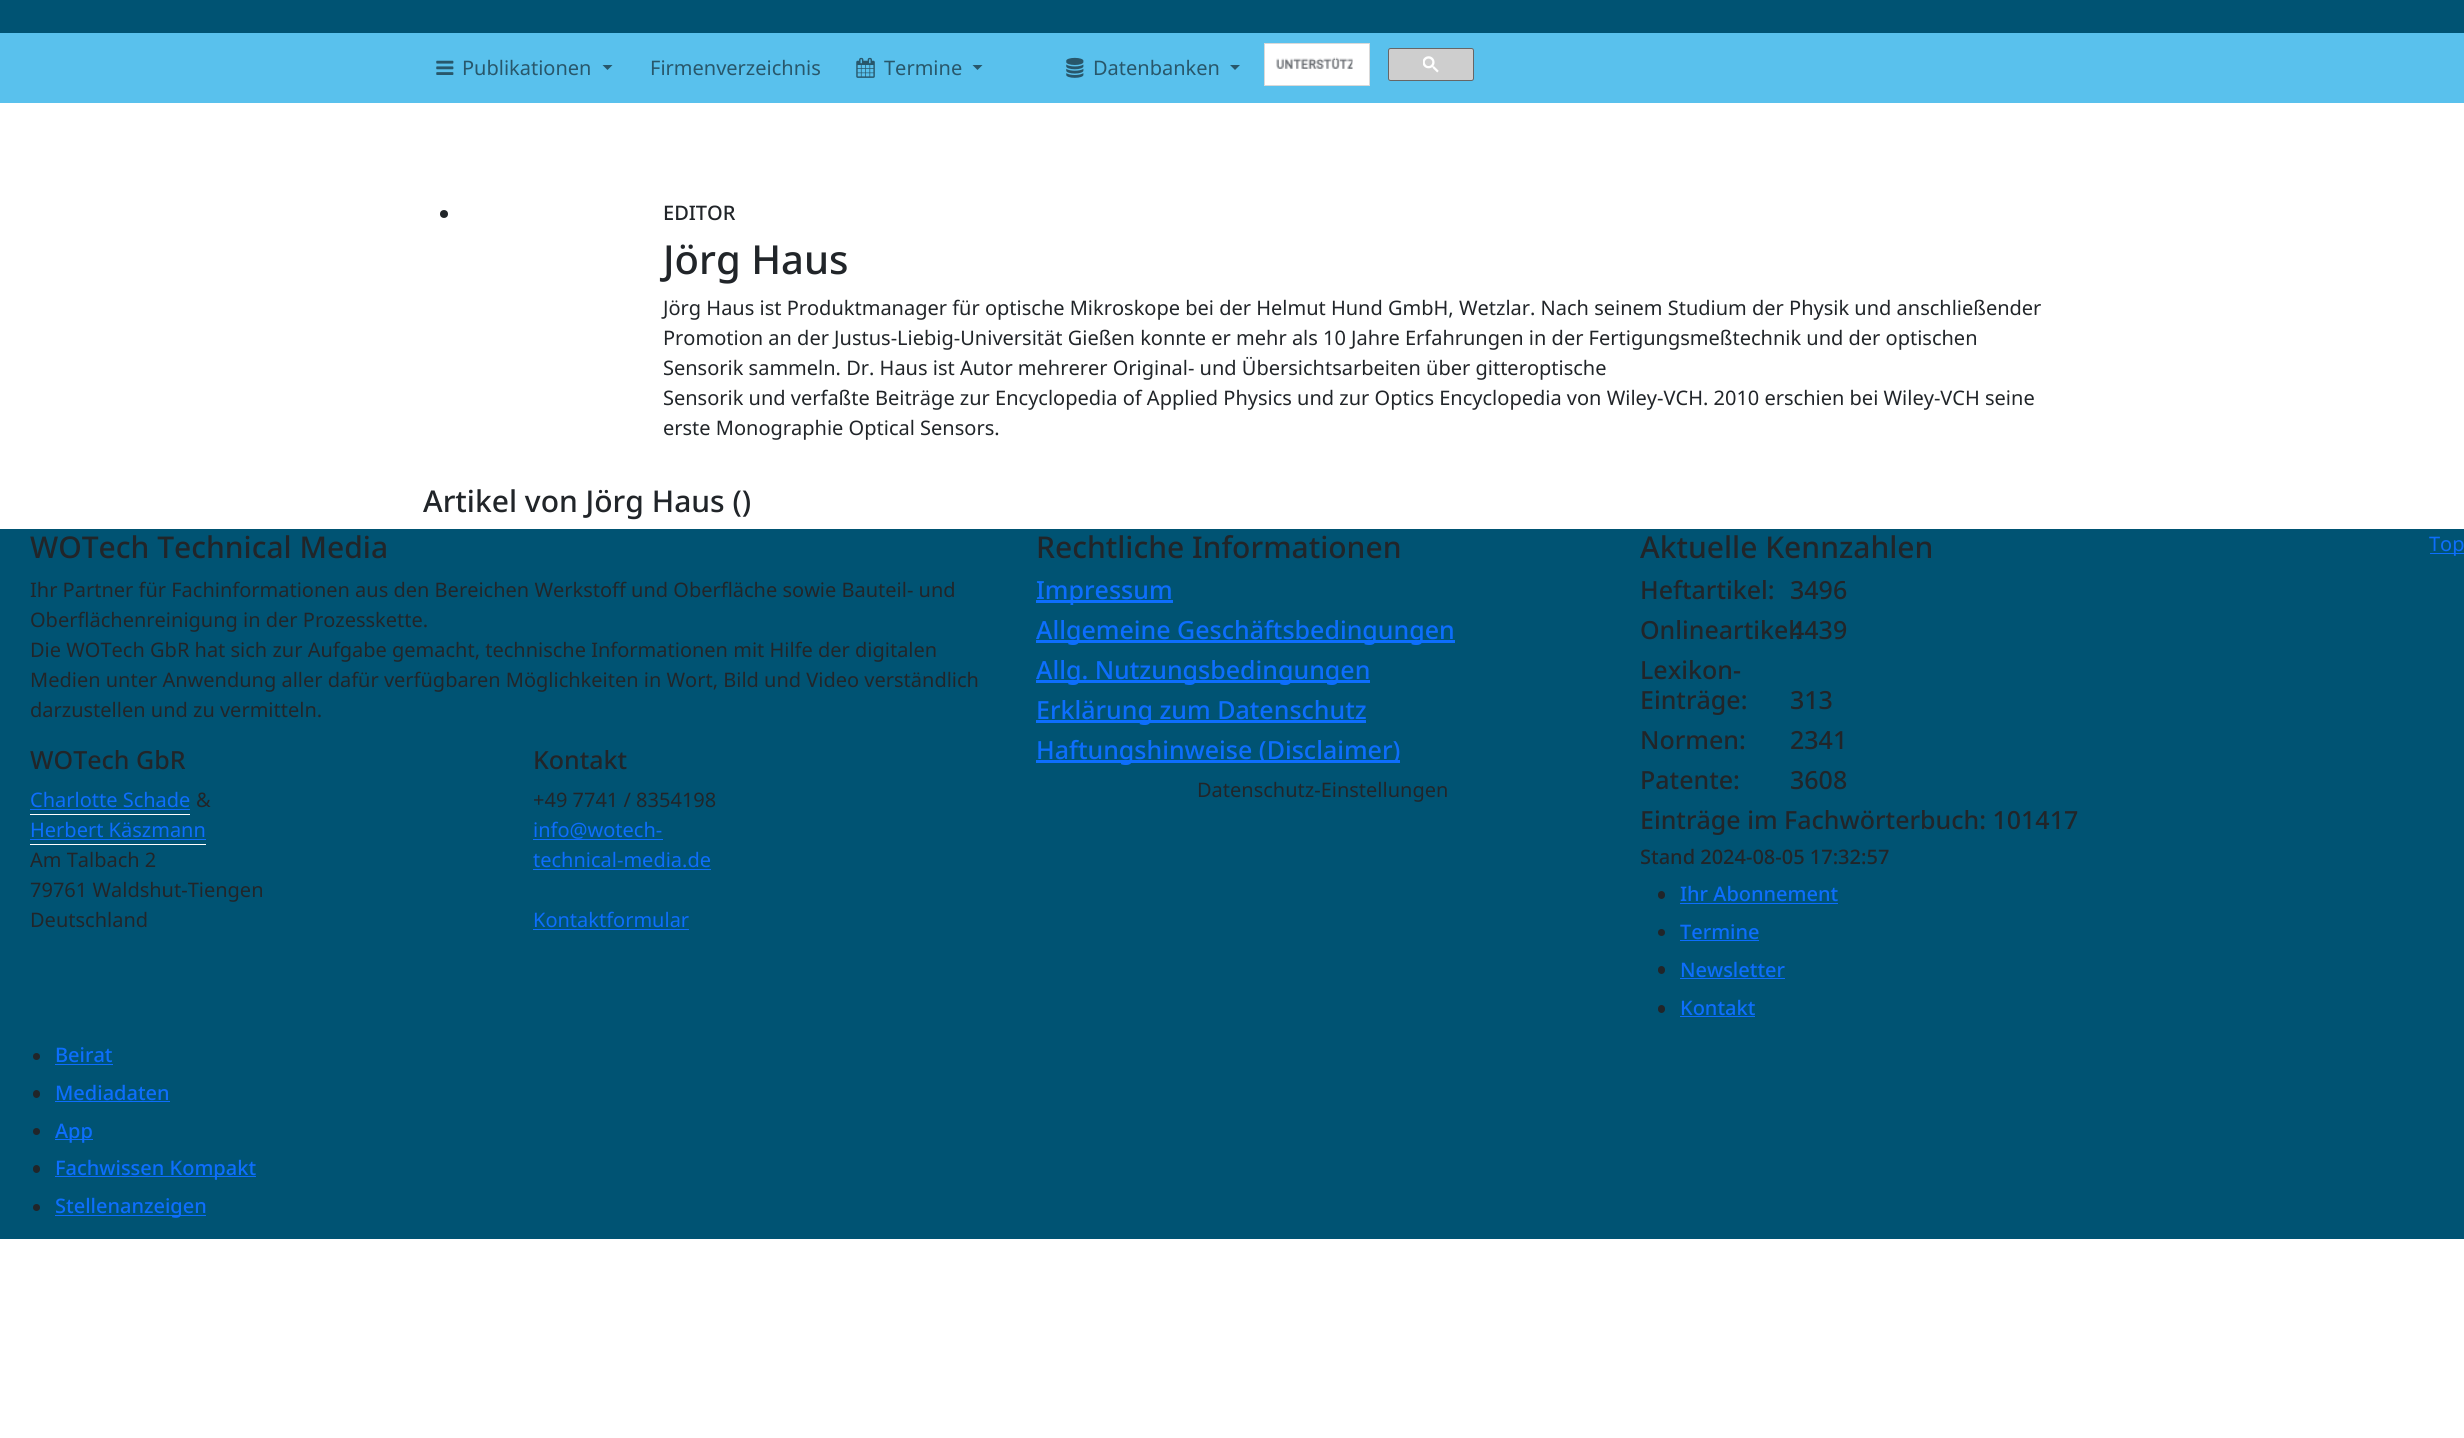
#include <cairo.h>
#include <math.h>
#include <stddef.h>


static void set_color(cairo_t *cr, unsigned color) {
    cairo_set_source_rgb(cr, (color >> 16) / 255.0, (color >> 8 & 255) / 255.0, (color & 255) / 255.0);
}

static void draw_text(cairo_t *cr, double x, double y, const char *s, const char *family, double size, int italic, int bold, unsigned color) {
    cairo_select_font_face(cr, family, italic ? CAIRO_FONT_SLANT_ITALIC : CAIRO_FONT_SLANT_NORMAL,
        bold ? CAIRO_FONT_WEIGHT_BOLD : CAIRO_FONT_WEIGHT_NORMAL);
    cairo_set_font_size(cr, size);
    set_color(cr, color);
    cairo_move_to(cr, x, y);
    cairo_show_text(cr, s);
}

static void fill_rect(cairo_t *cr, double x, double y, double w, double h, unsigned color) {
    set_color(cr, color);
    cairo_rectangle(cr, x, y, w, h);
    cairo_fill(cr);
}

static void rounded_rect(cairo_t *cr, double x, double y, double w, double h, double r) {
    cairo_new_sub_path(cr);
    cairo_arc(cr, x + w - r, y + h - r, r, 0, M_PI / 2);
    cairo_arc(cr, x + r, y + h - r, r, M_PI / 2, M_PI);
    cairo_arc(cr, x + r, y + r, r, M_PI, 1.5 * M_PI);
    cairo_arc(cr, x + w - r, y + r, r, 1.5 * M_PI, 2 * M_PI);
    cairo_close_path(cr);
}

static void draw_image(cairo_t *cr, const char *path, double x, double y, double w, double h) {
    cairo_surface_t *image = cairo_image_surface_create_from_png(path);
    cairo_save(cr);
    cairo_set_source_surface(cr, image, x, y);
    cairo_rectangle(cr, x, y, w, h);
    cairo_fill(cr);
    cairo_restore(cr);
    cairo_surface_destroy(image);
}

int main(void) {
    cairo_surface_t *surface = cairo_image_surface_create(CAIRO_FORMAT_RGB24, 2464, 1438);
    cairo_t *cr = cairo_create(surface);
    cairo_font_options_t *options = cairo_font_options_create();
    cairo_font_options_set_hint_metrics(options, CAIRO_HINT_METRICS_OFF);
    cairo_font_options_set_hint_style(options, CAIRO_HINT_STYLE_NONE);
    cairo_set_font_options(cr, options);
    cairo_set_miter_limit(cr, 4);
    set_color(cr, 0xFFFFFF);
    cairo_paint(cr);
    fill_rect(cr, 0, 0, 2464, 33, 0x005373);
    fill_rect(cr, 0, 33, 2464, 70, 0x59C1ED);
    draw_image(cr, "assets/img1.png", 436, 60, 18, 15);
    draw_text(cr, 462, 75, "Publikationen", "Noto Sans", 20, 0, 0, 0x28576B);
    cairo_new_path(cr);
    cairo_move_to(cr, 602.5, 65);
    cairo_line_to(cr, 612.5, 65);
    cairo_line_to(cr, 607.5, 70);
    cairo_close_path(cr);
    cairo_fill(cr);
    draw_text(cr, 650, 75, "Firmenverzeichnis", "Noto Sans", 20, 0, 0, 0x28576B);
    draw_image(cr, "assets/img2.png", 856, 57, 19, 21);
    draw_text(cr, 884, 75, "Termine", "Noto Sans", 20, 0, 0, 0x28576B);
    cairo_new_path(cr);
    cairo_move_to(cr, 972.5, 65);
    cairo_line_to(cr, 982.5, 65);
    cairo_line_to(cr, 977.5, 70);
    cairo_close_path(cr);
    cairo_fill(cr);
    draw_image(cr, "assets/img3.png", 1066, 57, 18, 21);
    draw_text(cr, 1093, 75, "Datenbanken", "Noto Sans", 20, 0, 0, 0x28576B);
    cairo_new_path(cr);
    cairo_move_to(cr, 1230, 65);
    cairo_line_to(cr, 1240, 65);
    cairo_line_to(cr, 1235, 70);
    cairo_close_path(cr);
    cairo_fill(cr);
    set_color(cr, 0xFFFFFF);
    cairo_rectangle(cr, 1264.5, 43.5, 105, 42);
    cairo_fill_preserve(cr);
    set_color(cr, 0xD9D9D9);
    cairo_set_line_width(cr, 1);
    cairo_stroke(cr);
    draw_image(cr, "assets/img4.png", 1276, 57, 77, 12);
    set_color(cr, 0xCECECE);
    rounded_rect(cr, 1388.5, 48.5, 85, 32, 2);
    cairo_fill_preserve(cr);
    set_color(cr, 0x666666);
    cairo_stroke(cr);
    draw_image(cr, "assets/img5.png", 1423, 56, 16, 17);
    set_color(cr, 0x212529);
    cairo_arc(cr, 444, 214, 4, 0, 2 * M_PI);
    cairo_fill(cr);
    draw_text(cr, 663, 220, "EDITOR", "Noto Sans Medium", 20, 0, 0, 0x212529);
    draw_text(cr, 663, 274, "Jörg Haus", "Noto Sans Medium", 40, 0, 0, 0x212529);
    draw_text(cr, 663, 315, "Jörg Haus ist Produktmanager für optische Mikroskope bei der Helmut Hund GmbH, Wetzlar. Nach seinem Studium der Physik und anschließender", "Noto Sans", 20, 0, 0, 0x212529);
    draw_text(cr, 663, 345, "Promotion an der Justus-Liebig-Universität Gießen konnte er mehr als 10 Jahre Erfahrungen in der Fertigungsmeßtechnik und der optischen", "Noto Sans", 20, 0, 0, 0x212529);
    draw_text(cr, 663, 375, "Sensorik sammeln. Dr. Haus ist Autor mehrerer Original- und Übersichtsarbeiten über gitteroptische", "Noto Sans", 20, 0, 0, 0x212529);
    draw_text(cr, 663, 405, "Sensorik und verfaßte Beiträge zur Encyclopedia of Applied Physics und zur Optics Encyclopedia von Wiley-VCH. 2010 erschien bei Wiley-VCH seine", "Noto Sans", 20, 0, 0, 0x212529);
    draw_text(cr, 663, 435, "erste Monographie Optical Sensors.", "Noto Sans", 20, 0, 0, 0x212529);
    draw_text(cr, 423, 512, "Artikel von Jörg Haus ()", "Noto Sans Medium", 30, 0, 0, 0x212529);
    fill_rect(cr, 0, 529, 2464, 710, 0x005373);
    draw_text(cr, 30, 558, "WOTech Technical Media", "Noto Sans Medium", 30, 0, 0, 0x212529);
    draw_text(cr, 30, 597, "Ihr Partner für Fachinformationen aus den Bereichen Werkstoff und Oberfläche sowie Bauteil- und", "Noto Sans", 20, 0, 0, 0x212529);
    draw_text(cr, 30, 627, "Oberflächenreinigung in der Prozesskette.", "Noto Sans", 20, 0, 0, 0x212529);
    draw_text(cr, 30, 657, "Die WOTech GbR hat sich zur Aufgabe gemacht, technische Informationen mit Hilfe der digitalen", "Noto Sans", 20, 0, 0, 0x212529);
    draw_text(cr, 30, 687, "Medien unter Anwendung aller dafür verfügbaren Möglichkeiten in Wort, Bild und Video verständlich", "Noto Sans", 20, 0, 0, 0x212529);
    draw_text(cr, 30, 717, "darzustellen und zu vermitteln.", "Noto Sans", 20, 0, 0, 0x212529);
    draw_text(cr, 30, 769, "WOTech GbR", "Noto Sans Medium", 25, 0, 0, 0x212529);
    draw_text(cr, 30, 807, "Charlotte Schade", "Noto Sans", 20, 0, 0, 0x0D6EFD);
    fill_rect(cr, 30, 814, 160, 1, 0xFFFFFF);
    fill_rect(cr, 30, 809, 160, 1, 0x0D6EFD);
    draw_text(cr, 196, 807, "&", "Noto Sans", 20, 0, 0, 0x212529);
    draw_text(cr, 30, 837, "Herbert Käszmann", "Noto Sans", 20, 0, 0, 0x0D6EFD);
    fill_rect(cr, 30, 844, 176, 1, 0xFFFFFF);
    fill_rect(cr, 30, 839, 176, 1, 0x0D6EFD);
    draw_text(cr, 30, 867, "Am Talbach 2", "Noto Sans", 20, 0, 0, 0x212529);
    draw_text(cr, 30, 897, "79761 Waldshut-Tiengen", "Noto Sans", 20, 0, 0, 0x212529);
    draw_text(cr, 30, 927, "Deutschland", "Noto Sans", 20, 0, 0, 0x212529);
    draw_text(cr, 533, 769, "Kontakt", "Noto Sans Medium", 25, 0, 0, 0x212529);
    draw_text(cr, 533, 807, "+49 7741 / 8354198", "Noto Sans", 20, 0, 0, 0x212529);
    draw_text(cr, 533, 837, "info@wotech-", "Noto Sans", 20, 0, 0, 0x0D6EFD);
    fill_rect(cr, 533, 839, 130, 1, 0x0D6EFD);
    draw_text(cr, 533, 867, "technical-media.de", "Noto Sans", 20, 0, 0, 0x0D6EFD);
    fill_rect(cr, 533, 869, 178, 1, 0x0D6EFD);
    draw_text(cr, 533, 927, "Kontaktformular", "Noto Sans", 20, 0, 0, 0x0D6EFD);
    fill_rect(cr, 533, 929, 156, 1, 0x0D6EFD);
    draw_text(cr, 1036, 558, "Rechtliche Informationen", "Noto Sans Medium", 30, 0, 0, 0x212529);
    fill_rect(cr, 1036, 600, 137, 3, 0x0D6EFD);
    draw_text(cr, 1036, 599, "Impressum", "Noto Sans Medium", 25, 0, 0, 0x0D6EFD);
    fill_rect(cr, 1036, 640, 419, 3, 0x0D6EFD);
    draw_text(cr, 1036, 639, "Allgemeine Geschäftsbedingungen", "Noto Sans Medium", 25, 0, 0, 0x0D6EFD);
    fill_rect(cr, 1036, 680, 334, 3, 0x0D6EFD);
    draw_text(cr, 1036, 679, "Allg. Nutzungsbedingungen", "Noto Sans Medium", 25, 0, 0, 0x0D6EFD);
    fill_rect(cr, 1036, 720, 330, 3, 0x0D6EFD);
    draw_text(cr, 1036, 719, "Erklärung zum Datenschutz", "Noto Sans Medium", 25, 0, 0, 0x0D6EFD);
    fill_rect(cr, 1036, 760, 364, 3, 0x0D6EFD);
    draw_text(cr, 1036, 759, "Haftungshinweise (Disclaimer)", "Noto Sans Medium", 25, 0, 0, 0x0D6EFD);
    draw_text(cr, 1197, 797, "Datenschutz-Einstellungen", "Noto Sans", 20, 0, 0, 0x212529);
    draw_text(cr, 1640, 558, "Aktuelle Kennzahlen", "Noto Sans Medium", 30, 0, 0, 0x212529);
    draw_text(cr, 1640, 599, "Heftartikel:", "Noto Sans Medium", 25, 0, 0, 0x212529);
    draw_text(cr, 1790, 599, "3496", "Noto Sans Medium", 25, 0, 0, 0x212529);
    draw_text(cr, 1640, 639, "Onlineartikel:", "Noto Sans Medium", 25, 0, 0, 0x212529);
    draw_text(cr, 1790, 639, "4439", "Noto Sans Medium", 25, 0, 0, 0x212529);
    draw_text(cr, 1640, 679, "Lexikon-", "Noto Sans Medium", 25, 0, 0, 0x212529);
    draw_text(cr, 1640, 709, "Einträge:", "Noto Sans Medium", 25, 0, 0, 0x212529);
    draw_text(cr, 1790, 709, "313", "Noto Sans Medium", 25, 0, 0, 0x212529);
    draw_text(cr, 1640, 749, "Normen:", "Noto Sans Medium", 25, 0, 0, 0x212529);
    draw_text(cr, 1790, 749, "2341", "Noto Sans Medium", 25, 0, 0, 0x212529);
    draw_text(cr, 1640, 789, "Patente:", "Noto Sans Medium", 25, 0, 0, 0x212529);
    draw_text(cr, 1790, 789, "3608", "Noto Sans Medium", 25, 0, 0, 0x212529);
    draw_text(cr, 1640, 829, "Einträge im Fachwörterbuch: 101417", "Noto Sans Medium", 25, 0, 0, 0x212529);
    draw_text(cr, 1640, 864, "Stand 2024-08-05 17:32:57", "Noto Sans Medium", 20, 0, 0, 0x212529);
    rounded_rect(cr, 1658, 891, 7, 8, 3.5);
    cairo_fill(cr);
    draw_text(cr, 1680, 901, "Ihr Abonnement", "Noto Sans Medium", 20, 0, 0, 0x0D6EFD);
    fill_rect(cr, 1680, 903, 158, 1, 0x0D6EFD);
    set_color(cr, 0x212529);
    cairo_new_path(cr);
    cairo_arc(cr, 1661.5, 932.5, 3.5, 0, 2 * M_PI);
    cairo_fill(cr);
    draw_text(cr, 1680, 939, "Termine", "Noto Sans Medium", 20, 0, 0, 0x0D6EFD);
    fill_rect(cr, 1680, 940, 79, 1, 0x0D6EFD);
    set_color(cr, 0x212529);
    rounded_rect(cr, 1658, 966, 7, 8, 3.5);
    cairo_fill(cr);
    draw_text(cr, 1680, 977, "Newsletter", "Noto Sans Medium", 20, 0, 0, 0x0D6EFD);
    fill_rect(cr, 1680, 978, 105, 1, 0x0D6EFD);
    set_color(cr, 0x212529);
    rounded_rect(cr, 1658, 1005, 7, 8, 3.5);
    cairo_fill(cr);
    draw_text(cr, 1680, 1015, "Kontakt", "Noto Sans Medium", 20, 0, 0, 0x0D6EFD);
    fill_rect(cr, 1680, 1016, 75, 1, 0x0D6EFD);
    set_color(cr, 0x212529);
    cairo_new_path(cr);
    cairo_arc(cr, 36.5, 1056.5, 3.5, 0, 2 * M_PI);
    cairo_fill(cr);
    draw_text(cr, 55, 1062, "Beirat", "Noto Sans Medium", 20, 0, 0, 0x0D6EFD);
    fill_rect(cr, 55, 1064, 58, 1, 0x0D6EFD);
    set_color(cr, 0x212529);
    rounded_rect(cr, 33, 1090, 7, 8, 3.5);
    cairo_fill(cr);
    draw_text(cr, 55, 1100, "Mediadaten", "Noto Sans Medium", 20, 0, 0, 0x0D6EFD);
    fill_rect(cr, 55, 1101, 115, 1, 0x0D6EFD);
    set_color(cr, 0x212529);
    cairo_new_path(cr);
    cairo_arc(cr, 36.5, 1131.5, 3.5, 0, 2 * M_PI);
    cairo_fill(cr);
    fill_rect(cr, 55, 1139, 38, 1, 0x0D6EFD);
    draw_text(cr, 55, 1138, "App", "Noto Sans Medium", 20, 0, 0, 0x0D6EFD);
    set_color(cr, 0x212529);
    rounded_rect(cr, 33, 1165, 7, 8, 3.5);
    cairo_fill(cr);
    fill_rect(cr, 55, 1176, 201, 1, 0x0D6EFD);
    draw_text(cr, 55, 1175, "Fachwissen Kompakt", "Noto Sans Medium", 20, 0, 0, 0x0D6EFD);
    set_color(cr, 0x212529);
    cairo_new_path(cr);
    cairo_arc(cr, 36.5, 1207.5, 3.5, 0, 2 * M_PI);
    cairo_fill(cr);
    fill_rect(cr, 55, 1215, 151, 1, 0x0D6EFD);
    draw_text(cr, 55, 1213, "Stellenanzeigen", "Noto Sans Medium", 20, 0, 0, 0x0D6EFD);
    fill_rect(cr, 2430, 553, 34, 1, 0x0D6EFD);
    draw_text(cr, 2429, 551, "Top", "Noto Sans", 20, 0, 0, 0x0D6EFD);
    cairo_surface_write_to_png(surface, "output.png");
    cairo_font_options_destroy(options);
    cairo_destroy(cr);
    cairo_surface_destroy(surface);
    return 0;
}
